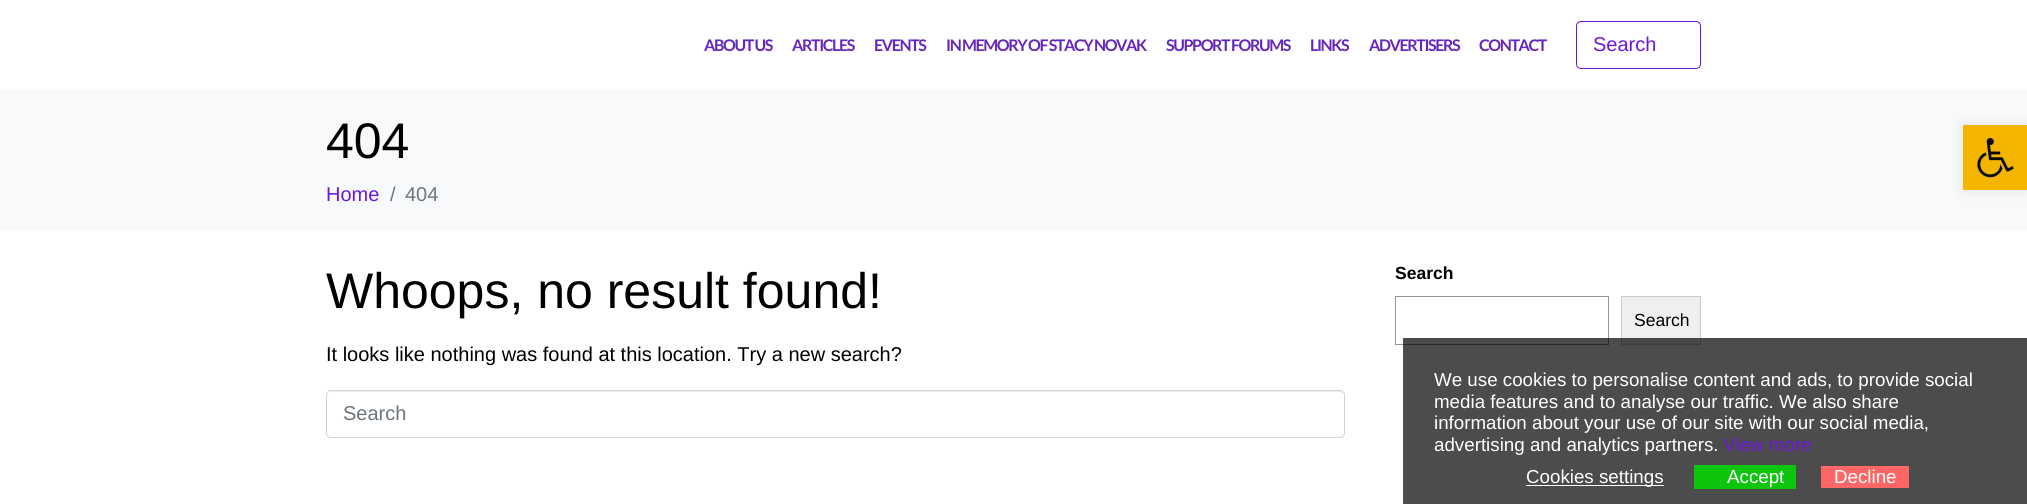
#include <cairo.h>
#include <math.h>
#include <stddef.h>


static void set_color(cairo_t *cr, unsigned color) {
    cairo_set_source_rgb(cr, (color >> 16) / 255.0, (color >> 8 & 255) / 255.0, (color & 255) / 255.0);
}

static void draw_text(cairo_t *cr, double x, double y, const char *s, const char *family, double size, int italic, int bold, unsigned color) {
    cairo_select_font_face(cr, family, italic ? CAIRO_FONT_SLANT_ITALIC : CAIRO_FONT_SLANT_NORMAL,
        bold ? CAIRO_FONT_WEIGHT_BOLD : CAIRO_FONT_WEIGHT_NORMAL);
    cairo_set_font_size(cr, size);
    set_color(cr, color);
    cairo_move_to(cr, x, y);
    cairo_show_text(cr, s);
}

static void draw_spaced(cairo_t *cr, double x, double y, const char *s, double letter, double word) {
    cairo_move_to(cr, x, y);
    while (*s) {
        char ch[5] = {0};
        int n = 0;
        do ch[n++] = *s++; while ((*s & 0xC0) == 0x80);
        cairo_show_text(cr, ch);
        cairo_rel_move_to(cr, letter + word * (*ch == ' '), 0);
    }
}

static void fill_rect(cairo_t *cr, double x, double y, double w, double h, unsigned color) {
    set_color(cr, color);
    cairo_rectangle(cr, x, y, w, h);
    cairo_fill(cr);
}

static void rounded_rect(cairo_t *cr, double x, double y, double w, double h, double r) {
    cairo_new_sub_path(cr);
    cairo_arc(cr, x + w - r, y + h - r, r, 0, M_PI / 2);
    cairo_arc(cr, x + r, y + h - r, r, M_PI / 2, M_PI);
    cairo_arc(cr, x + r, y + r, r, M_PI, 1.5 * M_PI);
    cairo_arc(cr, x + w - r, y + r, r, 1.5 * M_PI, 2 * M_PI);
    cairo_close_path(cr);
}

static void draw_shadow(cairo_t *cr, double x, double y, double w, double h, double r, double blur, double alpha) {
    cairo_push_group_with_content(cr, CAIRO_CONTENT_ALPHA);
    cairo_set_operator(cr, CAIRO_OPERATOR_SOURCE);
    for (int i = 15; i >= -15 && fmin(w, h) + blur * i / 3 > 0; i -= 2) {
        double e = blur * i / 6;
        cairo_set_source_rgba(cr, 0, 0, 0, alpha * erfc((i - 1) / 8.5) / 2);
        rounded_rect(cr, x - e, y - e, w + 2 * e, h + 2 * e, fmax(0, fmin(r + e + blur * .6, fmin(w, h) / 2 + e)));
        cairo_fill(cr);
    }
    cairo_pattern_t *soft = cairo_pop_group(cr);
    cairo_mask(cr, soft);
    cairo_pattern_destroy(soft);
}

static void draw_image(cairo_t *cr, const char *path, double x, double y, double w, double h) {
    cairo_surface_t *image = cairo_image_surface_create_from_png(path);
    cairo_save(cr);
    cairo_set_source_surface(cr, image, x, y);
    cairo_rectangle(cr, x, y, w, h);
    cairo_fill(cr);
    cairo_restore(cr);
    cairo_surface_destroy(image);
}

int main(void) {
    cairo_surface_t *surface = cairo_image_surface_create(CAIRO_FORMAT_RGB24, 2027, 504);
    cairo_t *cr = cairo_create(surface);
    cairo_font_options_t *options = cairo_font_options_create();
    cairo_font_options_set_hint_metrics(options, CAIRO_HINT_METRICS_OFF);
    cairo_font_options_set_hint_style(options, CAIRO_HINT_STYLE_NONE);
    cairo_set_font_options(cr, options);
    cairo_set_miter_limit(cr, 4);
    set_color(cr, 0xFFFFFF);
    cairo_paint(cr);
    cairo_select_font_face(cr, "Lato", CAIRO_FONT_SLANT_NORMAL, CAIRO_FONT_WEIGHT_BOLD);
    cairo_set_font_size(cr, 16);
    set_color(cr, 0x6526BB);
    draw_spaced(cr, 704, 51, "ABOUT US", -1.4, 0);
    draw_spaced(cr, 792, 51, "ARTICLES", -1.4, 0);
    draw_spaced(cr, 874, 51, "EVENTS", -1.4, 0);
    draw_spaced(cr, 946, 51, "IN MEMORY OF STACY NOVAK", -1.4, 0);
    draw_spaced(cr, 1166, 51, "SUPPORT FORUMS", -1.4, 0);
    draw_spaced(cr, 1310, 51, "LINKS", -1.4, 0);
    draw_spaced(cr, 1369, 51, "ADVERTISERS", -1.4, 0);
    draw_spaced(cr, 1479, 51, "CONTACT", -1.4, 0);
    rounded_rect(cr, 1576.5, 21.5, 124, 47, 4.5);
    set_color(cr, 0x6C17DF);
    cairo_set_line_width(cr, 1);
    cairo_stroke(cr);
    draw_text(cr, 1593, 51, "Search", "Liberation Sans", 20, 0, 0, 0x6C17DF);
    fill_rect(cr, 0, 90, 2027, 140, 0xF8F9FA);
    draw_text(cr, 326, 158, "404", "Liberation Sans", 50, 0, 0, 0x000000);
    draw_text(cr, 326, 201, "Home", "Liberation Sans", 20, 0, 0, 0x6C17DF);
    draw_text(cr, 390, 201, "/", "Liberation Sans", 20, 0, 0, 0x6C757D);
    draw_text(cr, 405, 201, "404", "Liberation Sans", 20, 0, 0, 0x6C757D);
    draw_text(cr, 326, 308, "Whoops, no result found!", "Liberation Sans", 50, 0, 0, 0x000000);
    draw_text(cr, 326, 361, "It looks like nothing was found at this location. Try a new search?", "Liberation Sans", 20, 0, 0, 0x000000);
    set_color(cr, 0xECECEC);
    cairo_new_path(cr);
    cairo_move_to(cr, 331, 392);
    cairo_line_to(cr, 1340, 392);
    cairo_curve_to(cr, 1342, 392, 1344, 394, 1344, 396);
    cairo_curve_to(cr, 1344, 393, 1343, 391, 1340, 391);
    cairo_line_to(cr, 332, 391);
    cairo_curve_to(cr, 329, 391, 328, 393, 328, 396);
    cairo_curve_to(cr, 328, 394, 329, 392, 331, 392);
    cairo_close_path(cr);
    cairo_fill(cr);
    rounded_rect(cr, 326.5, 390.5, 1018, 47, 4.5);
    set_color(cr, 0xCED4DA);
    cairo_stroke(cr);
    draw_text(cr, 343, 420, "Search", "Liberation Sans", 20, 0, 0, 0x6C757D);
    draw_text(cr, 1395, 279, "Search", "Liberation Sans", 17.5, 0, 1, 0x000000);
    cairo_rectangle(cr, 1395.5, 296.5, 213, 48);
    set_color(cr, 0x949494);
    cairo_stroke(cr);
    set_color(cr, 0xEFEFEF);
    cairo_rectangle(cr, 1621.5, 296.5, 79, 48);
    cairo_fill_preserve(cr);
    set_color(cr, 0xCCCCCC);
    cairo_stroke(cr);
    draw_text(cr, 1634, 326, "Search", "Liberation Sans", 17.5, 0, 0, 0x000000);
    set_color(cr, 0x000000);
    draw_shadow(cr, 1963, 125, 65, 65, 0, 6, 0.1);
    fill_rect(cr, 1963, 125, 64, 65, 0xF3B500);
    draw_image(cr, "assets/img1.png", 1977, 138, 37, 40);
    cairo_set_source_rgba(cr, 0, 0, 0, 0.7);
    cairo_rectangle(cr, 1403, 338, 624, 166);
    cairo_fill(cr);
    draw_text(cr, 1434, 386, "We use cookies to personalise content and ads, to provide social", "Liberation Sans", 18.75, 0, 0, 0xFFFFFF);
    draw_text(cr, 1434, 408, "media features and to analyse our traffic. We also share", "Liberation Sans", 18.75, 0, 0, 0xFFFFFF);
    draw_text(cr, 1434, 429, "information about your use of our site with our social media,", "Liberation Sans", 18.75, 0, 0, 0xFFFFFF);
    draw_text(cr, 1434, 451, "advertising and analytics partners.", "Liberation Sans", 18.75, 0, 0, 0xFFFFFF);
    draw_text(cr, 1723, 451, "View more", "Liberation Sans", 18.75, 0, 0, 0x6C17DF);
    fill_rect(cr, 1526, 485, 138, 1, 0xFFFFFF);
    draw_text(cr, 1526, 483, "Cookies settings", "Liberation Sans", 18.75, 0, 0, 0xFFFFFF);
    fill_rect(cr, 1694, 465, 102, 24, 0x0EC50E);
    draw_text(cr, 1727, 483, "Accept", "Liberation Sans", 18.75, 0, 0, 0xFFFFFF);
    fill_rect(cr, 1821, 466, 88, 22, 0xFF6666);
    draw_text(cr, 1834, 483, "Decline", "Liberation Sans", 18.75, 0, 0, 0xFFFFFF);
    cairo_surface_write_to_png(surface, "output.png");
    cairo_font_options_destroy(options);
    cairo_destroy(cr);
    cairo_surface_destroy(surface);
    return 0;
}
